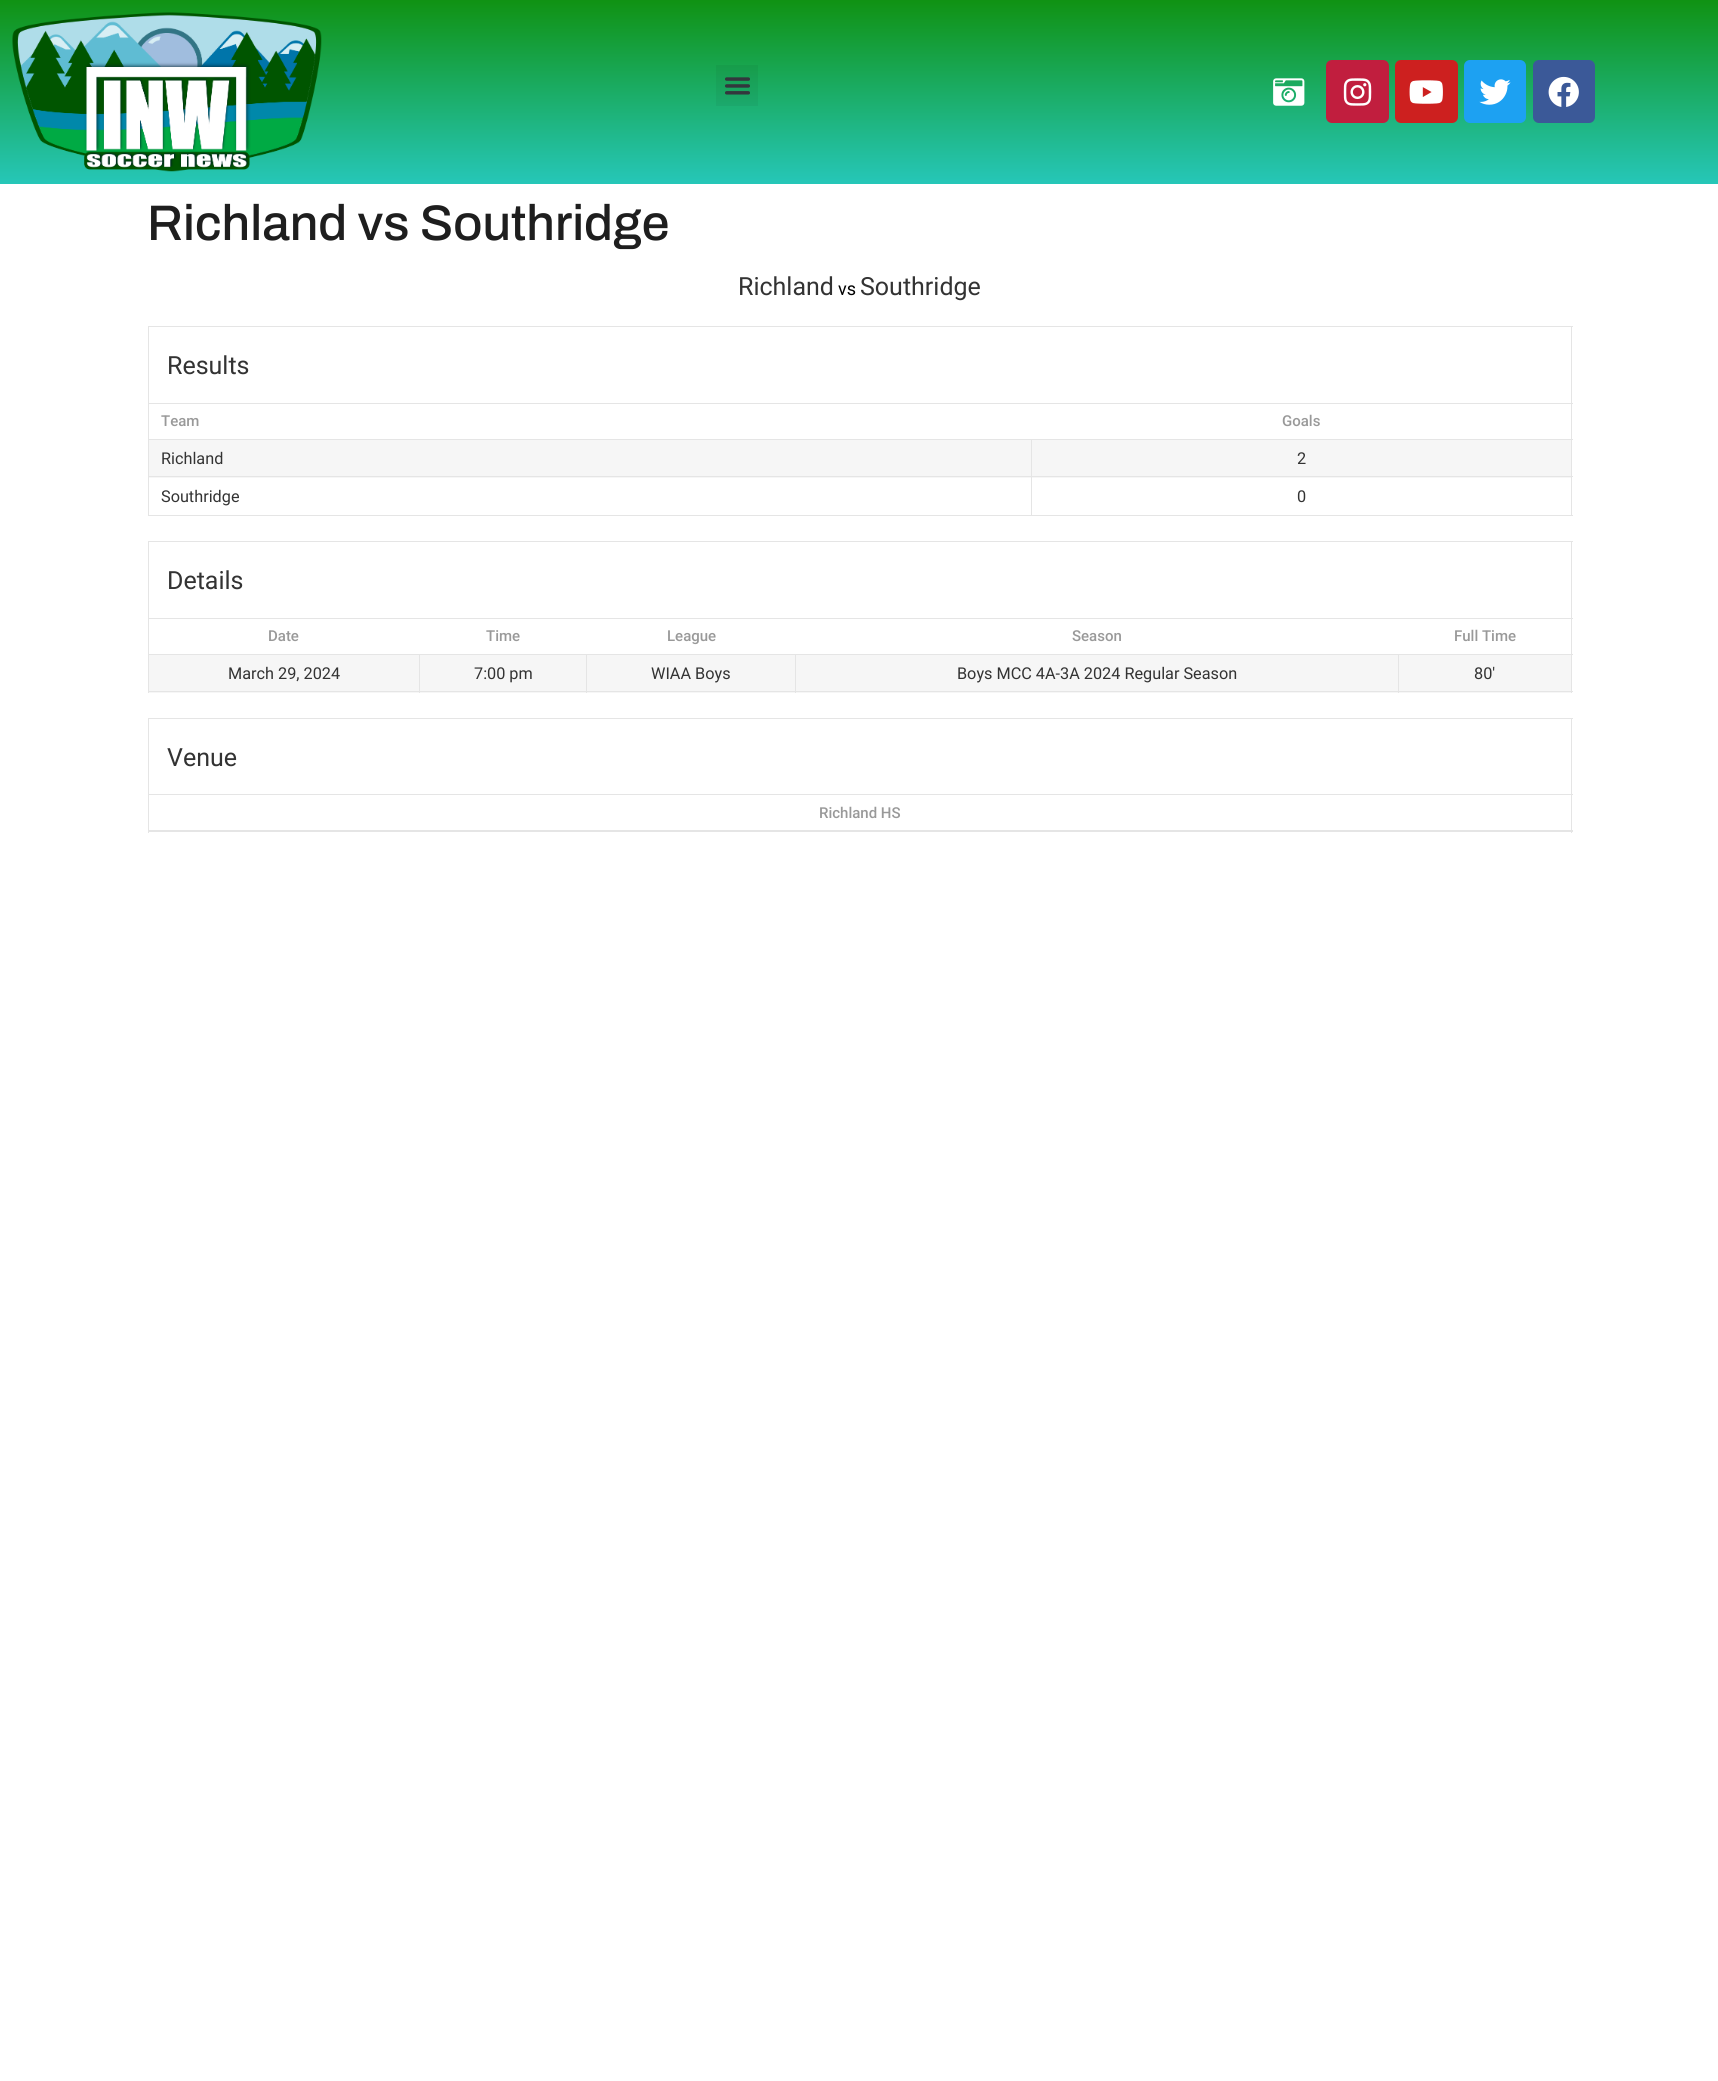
#include <cairo.h>
#include <math.h>
#include <stddef.h>


static void set_color(cairo_t *cr, unsigned color) {
    cairo_set_source_rgb(cr, (color >> 16) / 255.0, (color >> 8 & 255) / 255.0, (color & 255) / 255.0);
}

static void draw_text(cairo_t *cr, double x, double y, const char *s, const char *family, double size, int italic, int bold, unsigned color) {
    cairo_select_font_face(cr, family, italic ? CAIRO_FONT_SLANT_ITALIC : CAIRO_FONT_SLANT_NORMAL,
        bold ? CAIRO_FONT_WEIGHT_BOLD : CAIRO_FONT_WEIGHT_NORMAL);
    cairo_set_font_size(cr, size);
    set_color(cr, color);
    cairo_move_to(cr, x, y);
    cairo_show_text(cr, s);
}

static void fill_rect(cairo_t *cr, double x, double y, double w, double h, unsigned color) {
    set_color(cr, color);
    cairo_rectangle(cr, x, y, w, h);
    cairo_fill(cr);
}

static void rounded_rect(cairo_t *cr, double x, double y, double w, double h, double r) {
    cairo_new_sub_path(cr);
    cairo_arc(cr, x + w - r, y + h - r, r, 0, M_PI / 2);
    cairo_arc(cr, x + r, y + h - r, r, M_PI / 2, M_PI);
    cairo_arc(cr, x + r, y + r, r, M_PI, 1.5 * M_PI);
    cairo_arc(cr, x + w - r, y + r, r, 1.5 * M_PI, 2 * M_PI);
    cairo_close_path(cr);
}

static void draw_image(cairo_t *cr, const char *path, double x, double y, double w, double h) {
    cairo_surface_t *image = cairo_image_surface_create_from_png(path);
    cairo_save(cr);
    cairo_set_source_surface(cr, image, x, y);
    cairo_rectangle(cr, x, y, w, h);
    cairo_fill(cr);
    cairo_restore(cr);
    cairo_surface_destroy(image);
}

int main(void) {
    cairo_surface_t *surface = cairo_image_surface_create(CAIRO_FORMAT_RGB24, 1718, 2081);
    cairo_t *cr = cairo_create(surface);
    cairo_font_options_t *options = cairo_font_options_create();
    cairo_font_options_set_hint_metrics(options, CAIRO_HINT_METRICS_OFF);
    cairo_font_options_set_hint_style(options, CAIRO_HINT_STYLE_NONE);
    cairo_set_font_options(cr, options);
    cairo_set_miter_limit(cr, 4);
    cairo_pattern_t *gradient;
    set_color(cr, 0xFFFFFF);
    cairo_paint(cr);
    gradient = cairo_pattern_create_linear(859, 184, 859, 0);
    cairo_pattern_add_color_stop_rgba(gradient, 0, 0.149, 0.78, 0.722, 1);
    cairo_pattern_add_color_stop_rgba(gradient, 1, 0.063, 0.573, 0.075, 1);
    cairo_set_source(cr, gradient);
    cairo_pattern_destroy(gradient);
    cairo_rectangle(cr, 0, 0, 1718, 184);
    cairo_fill(cr);
    draw_image(cr, "assets/img1.png", 12, 12, 310, 160);
    cairo_set_source_rgba(cr, 0, 0, 0, 0.05);
    cairo_rectangle(cr, 716, 65, 42, 41);
    cairo_fill(cr);
    draw_image(cr, "assets/img2.png", 725, 77, 25, 18);
    draw_image(cr, "assets/img3.png", 1273, 78, 32, 28);
    set_color(cr, 0xC11E3E);
    rounded_rect(cr, 1326, 60, 63, 63, 6);
    cairo_fill(cr);
    draw_image(cr, "assets/img4.png", 1343, 78, 29, 28);
    set_color(cr, 0xCD201F);
    rounded_rect(cr, 1395, 60, 63, 63, 6);
    cairo_fill(cr);
    draw_image(cr, "assets/img5.png", 1409, 80, 34, 24);
    set_color(cr, 0x1DA1F2);
    rounded_rect(cr, 1464, 60, 62, 63, 6);
    cairo_fill(cr);
    draw_image(cr, "assets/img6.png", 1479, 79, 32, 26);
    set_color(cr, 0x3B5998);
    rounded_rect(cr, 1533, 60, 62, 63, 6);
    cairo_fill(cr);
    draw_image(cr, "assets/img7.png", 1548, 76, 31, 31);
    draw_text(cr, 147, 240, "Richland vs Southridge", "Archivo Medium", 50, 0, 0, 0x1E1E1E);
    draw_text(cr, 738, 295, "Richland", "Roboto", 25, 0, 0, 0x333333);
    draw_text(cr, 838, 295, "vs", "Roboto", 18, 0, 0, 0x000000);
    draw_text(cr, 860, 295, "Southridge", "Roboto", 25, 0, 0, 0x333333);
    fill_rect(cr, 148, 326, 1425, 1, 0xE5E5E5);
    fill_rect(cr, 1571, 326, 1, 77, 0xE5E5E5);
    fill_rect(cr, 148, 326, 1, 77, 0xE5E5E5);
    draw_text(cr, 167, 374, "Results", "Roboto", 25, 0, 0, 0x333333);
    fill_rect(cr, 148, 403, 1425, 1, 0xE5E5E5);
    fill_rect(cr, 1571, 403, 1, 113, 0xE5E5E5);
    fill_rect(cr, 148, 515, 1425, 1, 0xE5E5E5);
    fill_rect(cr, 148, 403, 1, 113, 0xE5E5E5);
    draw_text(cr, 161, 426, "Team", "Roboto Medium", 15, 0, 0, 0x999999);
    draw_text(cr, 1282, 426, "Goals", "Roboto Medium", 15, 0, 0, 0x999999);
    fill_rect(cr, 149, 440, 882, 38, 0xF6F6F6);
    fill_rect(cr, 1031, 439, 542, 1, 0xE5E5E5);
    fill_rect(cr, 1032, 440, 539, 38, 0xF6F6F6);
    fill_rect(cr, 1031, 476, 542, 1, 0xE5E5E5);
    fill_rect(cr, 1031, 476, 1, 40, 0xE5E5E5);
    fill_rect(cr, 148, 476, 885, 1, 0xE5E5E5);
    fill_rect(cr, 1031, 439, 1, 39, 0xE5E5E5);
    fill_rect(cr, 148, 439, 885, 1, 0xE5E5E5);
    draw_text(cr, 161, 464, "Richland", "Roboto", 16.25, 0, 0, 0x333333);
    draw_text(cr, 1297, 464, "2", "Roboto", 16.25, 0, 0, 0x333333);
    draw_text(cr, 161, 502, "Southridge", "Roboto", 16.25, 0, 0, 0x333333);
    draw_text(cr, 1297, 502, "0", "Roboto", 16.25, 0, 0, 0x333333);
    fill_rect(cr, 148, 541, 1425, 1, 0xE5E5E5);
    fill_rect(cr, 1571, 541, 1, 77, 0xE5E5E5);
    fill_rect(cr, 148, 541, 1, 77, 0xE5E5E5);
    draw_text(cr, 167, 589, "Details", "Roboto", 25, 0, 0, 0x333333);
    fill_rect(cr, 148, 618, 1425, 1, 0xE5E5E5);
    fill_rect(cr, 1571, 618, 1, 75, 0xE5E5E5);
    fill_rect(cr, 149, 655, 270, 38, 0xF6F6F6);
    fill_rect(cr, 420, 655, 375, 38, 0xF6F6F6);
    fill_rect(cr, 796, 655, 602, 38, 0xF6F6F6);
    fill_rect(cr, 1399, 655, 172, 38, 0xF6F6F6);
    fill_rect(cr, 148, 691, 1425, 1, 0xE5E5E5);
    fill_rect(cr, 148, 618, 1, 75, 0xE5E5E5);
    draw_text(cr, 268, 641, "Date", "Roboto Medium", 15, 0, 0, 0x999999);
    draw_text(cr, 486, 641, "Time", "Roboto Medium", 15, 0, 0, 0x999999);
    draw_text(cr, 667, 641, "League", "Roboto Medium", 15, 0, 0, 0x999999);
    draw_text(cr, 1072, 641, "Season", "Roboto Medium", 15, 0, 0, 0x999999);
    draw_text(cr, 1454, 641, "Full Time", "Roboto Medium", 15, 0, 0, 0x999999);
    fill_rect(cr, 1398, 654, 175, 1, 0xE5E5E5);
    fill_rect(cr, 1398, 654, 1, 39, 0xE5E5E5);
    fill_rect(cr, 795, 654, 604, 1, 0xE5E5E5);
    fill_rect(cr, 795, 654, 1, 39, 0xE5E5E5);
    fill_rect(cr, 586, 654, 210, 1, 0xE5E5E5);
    fill_rect(cr, 586, 654, 1, 39, 0xE5E5E5);
    fill_rect(cr, 419, 654, 169, 1, 0xE5E5E5);
    fill_rect(cr, 419, 654, 1, 39, 0xE5E5E5);
    fill_rect(cr, 148, 654, 272, 1, 0xE5E5E5);
    draw_text(cr, 228, 679, "March 29, 2024", "Roboto", 16.25, 0, 0, 0x333333);
    draw_text(cr, 474, 679, "7:00 pm", "Roboto", 16.25, 0, 0, 0x333333);
    draw_text(cr, 651, 679, "WIAA Boys", "Roboto", 16.25, 0, 0, 0x333333);
    draw_text(cr, 957, 679, "Boys MCC 4A-3A 2024 Regular Season", "Roboto", 16.25, 0, 0, 0x333333);
    draw_text(cr, 1474, 679, "80'", "Roboto", 16.25, 0, 0, 0x333333);
    fill_rect(cr, 148, 718, 1425, 1, 0xE5E5E5);
    fill_rect(cr, 1571, 718, 1, 76, 0xE5E5E5);
    fill_rect(cr, 148, 718, 1, 76, 0xE5E5E5);
    draw_text(cr, 167, 766, "Venue", "Roboto", 25, 0, 0, 0x333333);
    fill_rect(cr, 148, 794, 1425, 1, 0xE5E5E5);
    fill_rect(cr, 1571, 794, 1, 39, 0xE5E5E5);
    fill_rect(cr, 148, 831, 1425, 1, 0xE5E5E5);
    fill_rect(cr, 148, 794, 1, 39, 0xE5E5E5);
    draw_text(cr, 819, 818, "Richland HS", "Roboto Medium", 15, 0, 0, 0x999999);
    fill_rect(cr, 148, 830, 1425, 1, 0xE5E5E5);
    cairo_surface_write_to_png(surface, "output.png");
    cairo_font_options_destroy(options);
    cairo_destroy(cr);
    cairo_surface_destroy(surface);
    return 0;
}
